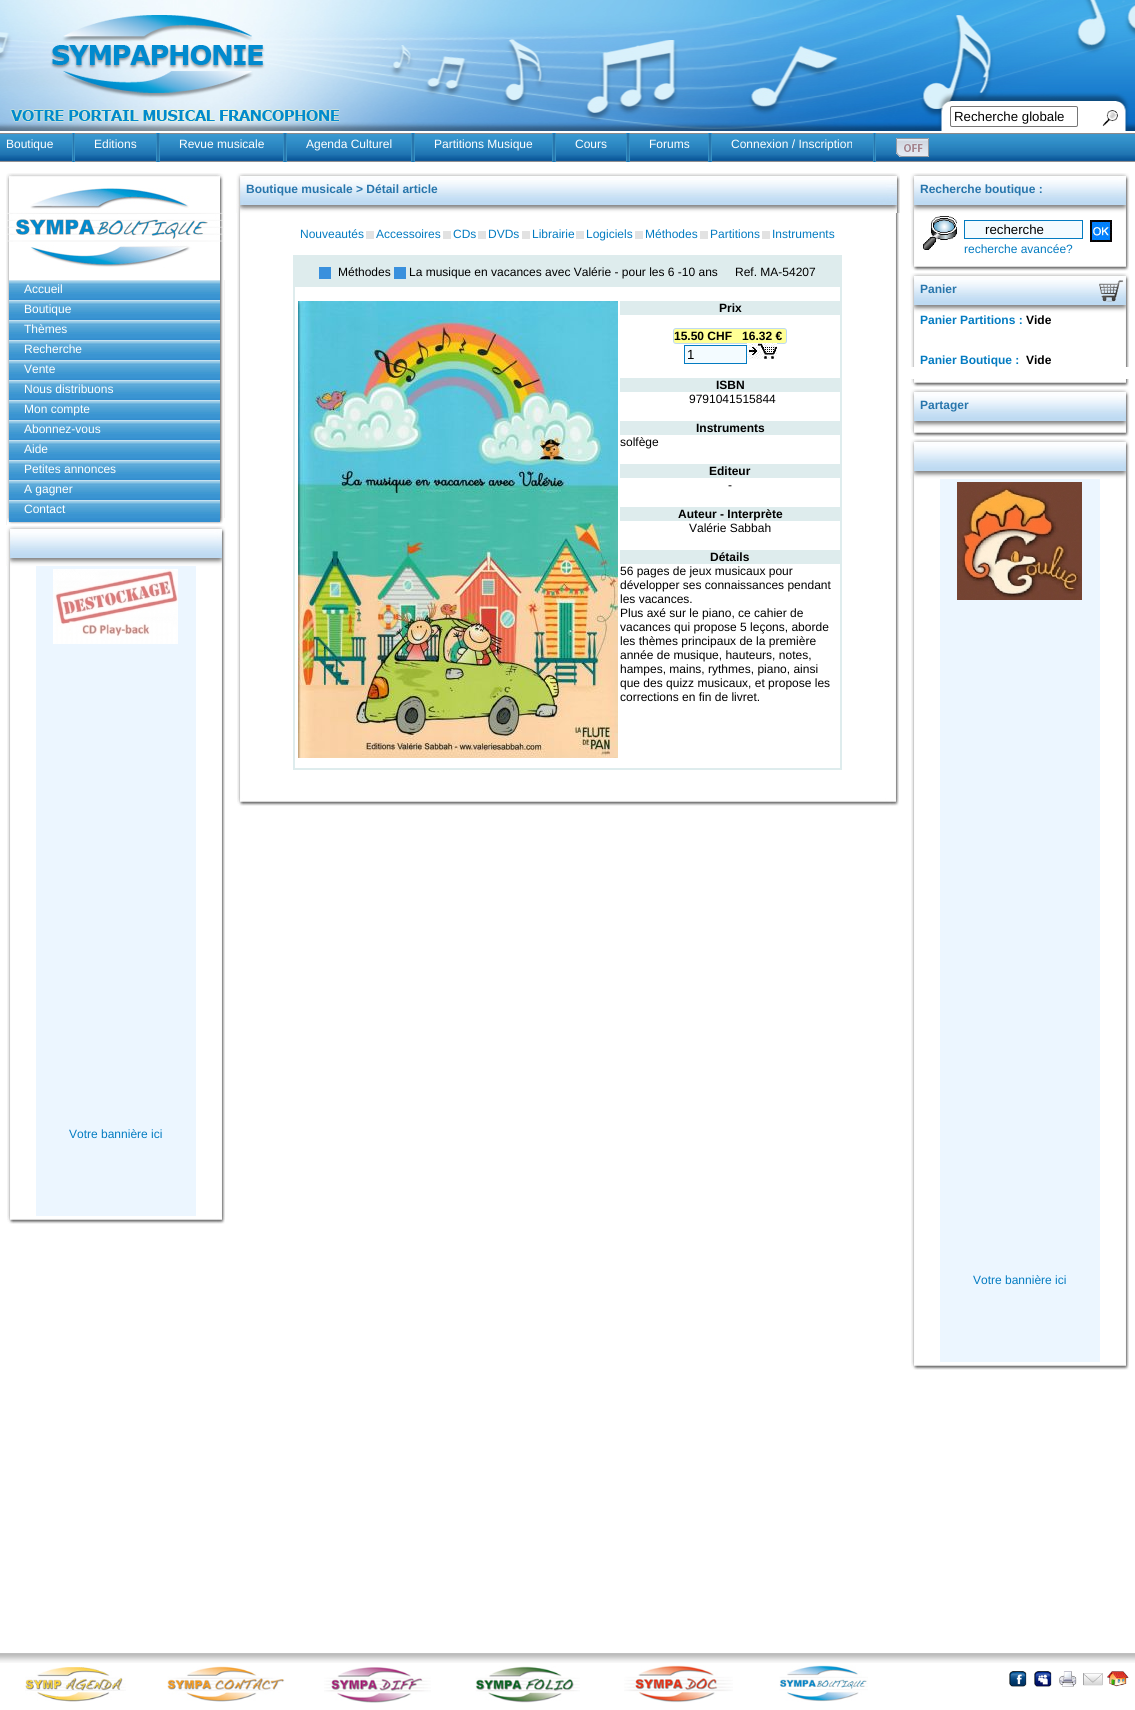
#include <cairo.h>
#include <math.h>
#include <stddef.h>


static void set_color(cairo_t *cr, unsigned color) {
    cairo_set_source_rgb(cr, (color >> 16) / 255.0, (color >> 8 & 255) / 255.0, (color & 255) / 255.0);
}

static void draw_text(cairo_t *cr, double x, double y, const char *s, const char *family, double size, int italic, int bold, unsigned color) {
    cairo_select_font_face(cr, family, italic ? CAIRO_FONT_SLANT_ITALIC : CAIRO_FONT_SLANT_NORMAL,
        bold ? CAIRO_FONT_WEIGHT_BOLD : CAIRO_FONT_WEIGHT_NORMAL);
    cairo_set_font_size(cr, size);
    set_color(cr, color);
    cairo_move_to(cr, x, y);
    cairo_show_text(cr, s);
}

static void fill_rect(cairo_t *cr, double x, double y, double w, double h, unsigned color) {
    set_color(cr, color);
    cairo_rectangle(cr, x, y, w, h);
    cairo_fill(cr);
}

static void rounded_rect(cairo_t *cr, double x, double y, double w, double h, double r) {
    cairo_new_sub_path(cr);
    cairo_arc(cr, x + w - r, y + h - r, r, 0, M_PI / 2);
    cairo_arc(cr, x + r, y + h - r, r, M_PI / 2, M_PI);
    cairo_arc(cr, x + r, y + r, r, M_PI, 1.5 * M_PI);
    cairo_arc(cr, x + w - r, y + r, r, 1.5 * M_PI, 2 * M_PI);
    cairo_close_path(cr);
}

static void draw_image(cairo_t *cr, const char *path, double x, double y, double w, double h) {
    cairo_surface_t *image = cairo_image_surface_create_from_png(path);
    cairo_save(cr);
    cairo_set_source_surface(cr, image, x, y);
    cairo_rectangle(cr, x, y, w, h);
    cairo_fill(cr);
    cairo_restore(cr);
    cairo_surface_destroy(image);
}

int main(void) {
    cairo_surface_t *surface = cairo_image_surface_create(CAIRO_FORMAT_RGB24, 1135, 1710);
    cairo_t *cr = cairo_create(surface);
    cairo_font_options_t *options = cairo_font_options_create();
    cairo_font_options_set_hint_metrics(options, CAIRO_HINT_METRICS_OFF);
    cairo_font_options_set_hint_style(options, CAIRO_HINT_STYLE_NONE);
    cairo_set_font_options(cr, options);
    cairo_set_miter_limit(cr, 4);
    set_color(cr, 0xFFFFFF);
    cairo_paint(cr);
    draw_image(cr, "assets/img1.png", 0, 131, 1135, 31);
    draw_image(cr, "assets/img2.png", 0, 0, 1135, 131);
    draw_image(cr, "assets/img3.png", 10, 15, 330, 107);
    rounded_rect(cr, 950.5, 106.5, 127, 20, 1.5);
    set_color(cr, 0x767676);
    cairo_set_line_width(cr, 1);
    cairo_stroke(cr);
    draw_text(cr, 954, 121, "Recherche globale", "Liberation Sans", 13.25, 0, 0, 0x000000);
    draw_image(cr, "assets/img4.png", 1102, 110, 16, 17);
    fill_rect(cr, 72, 133, 1, 29, 0x358FC3);
    draw_text(cr, 6, 148, "Boutique", "Liberation Sans", 12, 0, 0, 0xFFFFFF);
    fill_rect(cr, 157, 133, 2, 29, 0x2876AC);
    fill_rect(cr, 73, 133, 1, 29, 0x2876AC);
    fill_rect(cr, 156, 133, 1, 29, 0x358FC3);
    fill_rect(cr, 74, 133, 1, 29, 0x358FC3);
    draw_text(cr, 94, 148, "Editions", "Liberation Sans", 12, 0, 0, 0xFFFFFF);
    fill_rect(cr, 284, 133, 2, 29, 0x2876AC);
    fill_rect(cr, 283, 133, 1, 29, 0x358FC3);
    fill_rect(cr, 159, 133, 1, 29, 0x358FC3);
    draw_text(cr, 179, 148, "Revue musicale", "Liberation Sans", 12, 0, 0, 0xFFFFFF);
    fill_rect(cr, 412, 133, 2, 29, 0x2876AC);
    fill_rect(cr, 411, 133, 1, 29, 0x358FC3);
    fill_rect(cr, 286, 133, 1, 29, 0x358FC3);
    draw_text(cr, 306, 148, "Agenda Culturel", "Liberation Sans", 12, 0, 0, 0xFFFFFF);
    fill_rect(cr, 553, 133, 2, 29, 0x2876AC);
    fill_rect(cr, 552, 133, 1, 29, 0x358FC3);
    fill_rect(cr, 414, 133, 1, 29, 0x358FC3);
    draw_text(cr, 434, 148, "Partitions Musique", "Liberation Sans", 12, 0, 0, 0xFFFFFF);
    fill_rect(cr, 627, 133, 2, 29, 0x2876AC);
    fill_rect(cr, 626, 133, 1, 29, 0x358FC3);
    fill_rect(cr, 555, 133, 1, 29, 0x358FC3);
    draw_text(cr, 575, 148, "Cours", "Liberation Sans", 12, 0, 0, 0xFFFFFF);
    fill_rect(cr, 709, 133, 2, 29, 0x2876AC);
    fill_rect(cr, 708, 133, 1, 29, 0x358FC3);
    fill_rect(cr, 629, 133, 1, 29, 0x358FC3);
    draw_text(cr, 649, 148, "Forums", "Liberation Sans", 12, 0, 0, 0xFFFFFF);
    fill_rect(cr, 874, 133, 1, 29, 0x2876AC);
    fill_rect(cr, 873, 133, 1, 29, 0x358FC3);
    fill_rect(cr, 711, 133, 1, 29, 0x358FC3);
    draw_text(cr, 731, 148, "Connexion / Inscription", "Liberation Sans", 12, 0, 0, 0xFFFFFF);
    fill_rect(cr, 875, 133, 1, 29, 0x358FC3);
    draw_image(cr, "assets/img5.png", 896, 138, 33, 19);
    draw_image(cr, "assets/img6.png", 6, 173, 218, 107);
    draw_image(cr, "assets/img7.png", 6, 280, 219, 245);
    draw_image(cr, "assets/img8.png", 7, 518, 218, 7);
    draw_image(cr, "assets/img9.png", 9, 280, 211, 20);
    draw_text(cr, 24, 293, "Accueil", "Liberation Sans", 12, 0, 0, 0xFFFFFF);
    draw_image(cr, "assets/img9.png", 9, 300, 211, 20);
    draw_text(cr, 24, 313, "Boutique", "Liberation Sans", 12, 0, 0, 0xFFFFFF);
    draw_image(cr, "assets/img9.png", 9, 320, 211, 20);
    draw_text(cr, 24, 333, "Thèmes", "Liberation Sans", 12, 0, 0, 0xFFFFFF);
    draw_image(cr, "assets/img9.png", 9, 340, 211, 20);
    draw_text(cr, 24, 353, "Recherche", "Liberation Sans", 12, 0, 0, 0xFFFFFF);
    draw_image(cr, "assets/img9.png", 9, 360, 211, 20);
    draw_text(cr, 24, 373, "Vente", "Liberation Sans", 12, 0, 0, 0xFFFFFF);
    draw_image(cr, "assets/img9.png", 9, 380, 211, 20);
    draw_text(cr, 24, 393, "Nous distribuons", "Liberation Sans", 12, 0, 0, 0xFFFFFF);
    draw_image(cr, "assets/img9.png", 9, 400, 211, 20);
    draw_text(cr, 24, 413, "Mon compte", "Liberation Sans", 12, 0, 0, 0xFFFFFF);
    draw_image(cr, "assets/img9.png", 9, 420, 211, 20);
    draw_text(cr, 24, 433, "Abonnez-vous", "Liberation Sans", 12, 0, 0, 0xFFFFFF);
    draw_image(cr, "assets/img9.png", 9, 440, 211, 20);
    draw_text(cr, 24, 453, "Aide", "Liberation Sans", 12, 0, 0, 0xFFFFFF);
    draw_image(cr, "assets/img9.png", 9, 460, 211, 20);
    draw_text(cr, 24, 473, "Petites annonces", "Liberation Sans", 12, 0, 0, 0xFFFFFF);
    draw_image(cr, "assets/img9.png", 9, 480, 211, 20);
    draw_text(cr, 24, 493, "A gagner", "Liberation Sans", 12, 0, 0, 0xFFFFFF);
    draw_image(cr, "assets/img10.png", 9, 500, 211, 22);
    draw_text(cr, 24, 513, "Contact", "Liberation Sans", 12, 0, 0, 0xFFFFFF);
    draw_image(cr, "assets/img11.png", 6, 526, 220, 40);
    draw_image(cr, "assets/img12.png", 7, 566, 218, 650);
    fill_rect(cr, 36, 566, 160, 650, 0xECF6FF);
    draw_image(cr, "assets/img13.png", 53, 569, 125, 75);
    draw_text(cr, 69, 1138, "Votre bannière ici", "Liberation Sans", 12, 0, 0, 0x037BC1);
    draw_image(cr, "assets/img14.png", 7, 1216, 218, 8);
    draw_image(cr, "assets/img15.png", 236, 173, 664, 40);
    draw_text(cr, 246, 193, "Boutique musicale > Détail article", "Liberation Sans", 12, 0, 1, 0x2876AC);
    draw_image(cr, "assets/img16.png", 237, 213, 662, 585);
    draw_text(cr, 300, 238, "Nouveautés", "Liberation Sans", 12, 0, 0, 0x037BC1);
    fill_rect(cr, 366, 231, 8, 8, 0xE2E2E2);
    draw_text(cr, 376, 238, "Accessoires", "Liberation Sans", 12, 0, 0, 0x037BC1);
    fill_rect(cr, 443, 231, 8, 8, 0xE2E2E2);
    draw_text(cr, 453, 238, "CDs", "Liberation Sans", 12, 0, 0, 0x037BC1);
    fill_rect(cr, 478, 231, 8, 8, 0xE2E2E2);
    draw_text(cr, 488, 238, "DVDs", "Liberation Sans", 12, 0, 0, 0x037BC1);
    fill_rect(cr, 522, 231, 8, 8, 0xE2E2E2);
    draw_text(cr, 532, 238, "Librairie", "Liberation Sans", 12, 0, 0, 0x037BC1);
    fill_rect(cr, 576, 231, 8, 8, 0xE2E2E2);
    draw_text(cr, 586, 238, "Logiciels", "Liberation Sans", 12, 0, 0, 0x037BC1);
    fill_rect(cr, 635, 231, 8, 8, 0xE2E2E2);
    draw_text(cr, 645, 238, "Méthodes", "Liberation Sans", 12, 0, 0, 0x037BC1);
    fill_rect(cr, 700, 231, 8, 8, 0xE2E2E2);
    draw_text(cr, 710, 238, "Partitions", "Liberation Sans", 12, 0, 0, 0x037BC1);
    fill_rect(cr, 762, 231, 8, 8, 0xE2E2E2);
    draw_text(cr, 772, 238, "Instruments", "Liberation Sans", 12, 0, 0, 0x037BC1);
    cairo_rectangle(cr, 294, 256, 547, 513);
    set_color(cr, 0xDEECED);
    cairo_set_line_width(cr, 2);
    cairo_stroke(cr);
    fill_rect(cr, 295, 257, 545, 30, 0xDEECED);
    fill_rect(cr, 319, 267, 12, 12, 0x3990DD);
    draw_text(cr, 338, 276, "Méthodes", "Liberation Sans", 12, 0, 0, 0x000000);
    fill_rect(cr, 394, 267, 12, 12, 0x3990DD);
    draw_text(cr, 409, 276, "La musique en vacances avec Valérie - pour les 6 -10 ans", "Liberation Sans", 12, 0, 0, 0x000000);
    draw_text(cr, 735, 276, "Ref. MA-54207", "Liberation Sans", 12, 0, 0, 0x000000);
    draw_image(cr, "assets/img17.png", 298, 301, 320, 457);
    fill_rect(cr, 620, 301, 220, 14, 0xDEECED);
    draw_text(cr, 719, 312, "Prix", "Liberation Sans", 12, 0, 1, 0x000000);
    set_color(cr, 0xFFFF95);
    rounded_rect(cr, 673.5, 328.5, 113, 15, 2.5);
    cairo_fill_preserve(cr);
    set_color(cr, 0xBEDAF2);
    cairo_set_line_width(cr, 1);
    cairo_stroke(cr);
    draw_text(cr, 674, 340, "15.50 CHF   16.32 €", "Liberation Sans", 12, 0, 1, 0x000000);
    set_color(cr, 0xF3FBFF);
    cairo_rectangle(cr, 684.5, 345.5, 62, 18);
    cairo_fill_preserve(cr);
    set_color(cr, 0x037BC1);
    cairo_stroke(cr);
    draw_text(cr, 687, 359, "1", "Liberation Sans", 13.25, 0, 0, 0x000000);
    draw_image(cr, "assets/img18.png", 747, 343, 30, 16);
    fill_rect(cr, 620, 378, 220, 14, 0xDEECED);
    draw_text(cr, 716, 389, "ISBN", "Liberation Sans", 12, 0, 1, 0x000000);
    draw_text(cr, 689, 403, "9791041515844", "Liberation Sans", 12, 0, 0, 0x000000);
    fill_rect(cr, 620, 421, 220, 14, 0xDEECED);
    draw_text(cr, 696, 432, "Instruments", "Liberation Sans", 12, 0, 1, 0x000000);
    draw_text(cr, 620, 446, "solfège", "Liberation Sans", 12, 0, 0, 0x000000);
    fill_rect(cr, 620, 464, 220, 14, 0xDEECED);
    draw_text(cr, 709, 475, "Editeur", "Liberation Sans", 12, 0, 1, 0x000000);
    draw_text(cr, 728, 489, "-", "Liberation Sans", 12, 0, 0, 0x000000);
    fill_rect(cr, 620, 507, 220, 14, 0xDEECED);
    draw_text(cr, 678, 518, "Auteur - Interprète", "Liberation Sans", 12, 0, 1, 0x000000);
    draw_text(cr, 689, 532, "Valérie Sabbah", "Liberation Sans", 12, 0, 0, 0x000000);
    fill_rect(cr, 620, 550, 220, 14, 0xDEECED);
    draw_text(cr, 710, 561, "Détails", "Liberation Sans", 12, 0, 1, 0x000000);
    draw_text(cr, 620, 575, "56 pages de jeux musicaux pour", "Liberation Sans", 12, 0, 0, 0x000000);
    draw_text(cr, 620, 589, "développer ses connaissances pendant", "Liberation Sans", 12, 0, 0, 0x000000);
    draw_text(cr, 620, 603, "les vacances.", "Liberation Sans", 12, 0, 0, 0x000000);
    draw_text(cr, 620, 617, "Plus axé sur le piano, ce cahier de", "Liberation Sans", 12, 0, 0, 0x000000);
    draw_text(cr, 620, 631, "vacances qui propose 5 leçons, aborde", "Liberation Sans", 12, 0, 0, 0x000000);
    draw_text(cr, 620, 645, "les thèmes principaux de la première", "Liberation Sans", 12, 0, 0, 0x000000);
    draw_text(cr, 620, 659, "année de musique, hauteurs, notes,", "Liberation Sans", 12, 0, 0, 0x000000);
    draw_text(cr, 620, 673, "hampes, mains, rythmes, piano, ainsi", "Liberation Sans", 12, 0, 0, 0x000000);
    draw_text(cr, 620, 687, "que des quizz musicaux, et propose les", "Liberation Sans", 12, 0, 0, 0x000000);
    draw_text(cr, 620, 701, "corrections en fin de livret.", "Liberation Sans", 12, 0, 0, 0x000000);
    draw_image(cr, "assets/img19.png", 237, 798, 662, 8);
    draw_image(cr, "assets/img11.png", 910, 173, 220, 40);
    draw_text(cr, 920, 193, "Recherche boutique :", "Liberation Sans", 12, 0, 1, 0x2876AC);
    draw_image(cr, "assets/img20.png", 911, 213, 218, 50);
    draw_image(cr, "assets/img21.png", 923, 216, 34, 34);
    set_color(cr, 0xF3FBFF);
    cairo_rectangle(cr, 964.5, 220.5, 118, 18);
    cairo_fill_preserve(cr);
    set_color(cr, 0x037BC1);
    cairo_stroke(cr);
    draw_text(cr, 985, 234, "recherche", "Liberation Sans", 13.25, 0, 0, 0x000000);
    draw_image(cr, "assets/img22.png", 1090, 220, 22, 22);
    draw_text(cr, 964, 253, "recherche avancée?", "Liberation Sans", 12, 0, 0, 0x037BC1);
    draw_image(cr, "assets/img14.png", 911, 263, 218, 8);
    draw_image(cr, "assets/img11.png", 910, 273, 220, 40);
    draw_text(cr, 920, 293, "Panier", "Liberation Sans", 12, 0, 1, 0x2876AC);
    draw_image(cr, "assets/img23.png", 1099, 280, 25, 22);
    draw_image(cr, "assets/img24.png", 911, 313, 218, 54);
    draw_text(cr, 920, 324, "Panier Partitions :", "Liberation Sans", 12, 0, 1, 0x037BC1);
    draw_text(cr, 1026, 324, "Vide", "Liberation Sans", 12, 0, 1, 0x000000);
    draw_text(cr, 920, 364, "Panier Boutique :", "Liberation Sans", 12, 0, 1, 0x037BC1);
    draw_text(cr, 1026, 364, "Vide", "Liberation Sans", 12, 0, 1, 0x000000);
    draw_image(cr, "assets/img14.png", 911, 379, 218, 8);
    draw_image(cr, "assets/img11.png", 910, 389, 220, 40);
    draw_text(cr, 920, 409, "Partager", "Liberation Sans", 12, 0, 1, 0x2876AC);
    draw_image(cr, "assets/img14.png", 911, 429, 218, 8);
    draw_image(cr, "assets/img11.png", 910, 439, 220, 40);
    draw_image(cr, "assets/img25.png", 911, 479, 218, 883);
    fill_rect(cr, 940, 479, 160, 883, 0xECF6FF);
    draw_image(cr, "assets/img26.png", 957, 482, 125, 118);
    draw_text(cr, 973, 1284, "Votre bannière ici", "Liberation Sans", 12, 0, 0, 0x037BC1);
    draw_image(cr, "assets/img14.png", 911, 1362, 218, 8);
    draw_image(cr, "assets/img27.png", 0, 1653, 1135, 10);
    draw_image(cr, "assets/img28.png", 25, 1667, 101, 35);
    draw_image(cr, "assets/img29.png", 167, 1666, 118, 36);
    draw_image(cr, "assets/img30.png", 324, 1667, 107, 36);
    draw_image(cr, "assets/img31.png", 475, 1666, 105, 37);
    draw_image(cr, "assets/img32.png", 624, 1665, 109, 38);
    draw_image(cr, "assets/img33.png", 779, 1665, 89, 37);
    draw_image(cr, "assets/img34.png", 1009, 1671, 18, 16);
    draw_image(cr, "assets/img35.png", 1034, 1671, 18, 16);
    draw_image(cr, "assets/img36.png", 1059, 1671, 18, 16);
    draw_image(cr, "assets/img37.png", 1083, 1673, 20, 13);
    draw_image(cr, "assets/img38.png", 1107, 1671, 22, 16);
    cairo_surface_write_to_png(surface, "output.png");
    cairo_font_options_destroy(options);
    cairo_destroy(cr);
    cairo_surface_destroy(surface);
    return 0;
}
